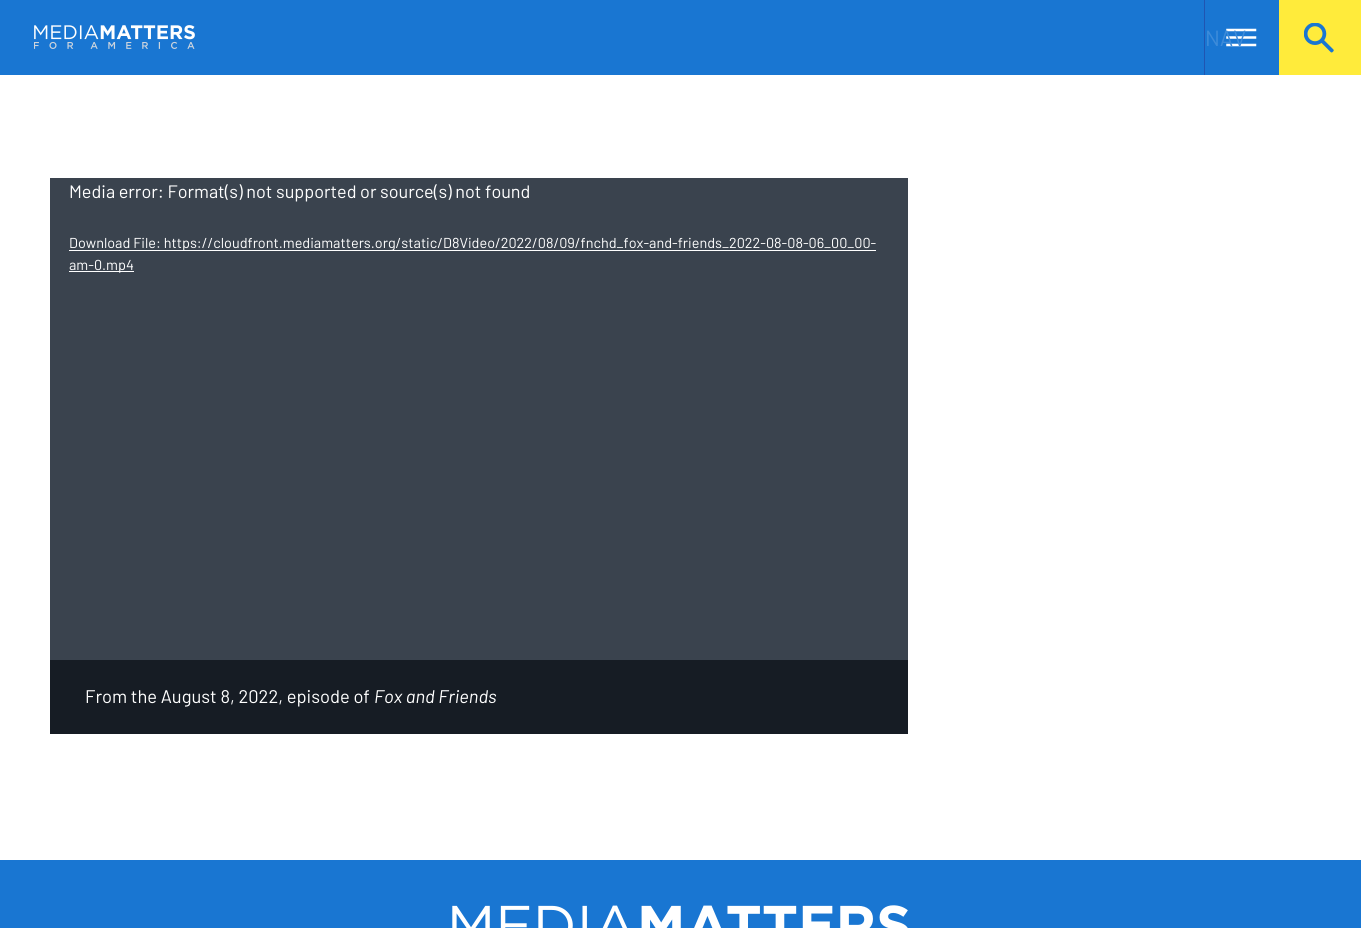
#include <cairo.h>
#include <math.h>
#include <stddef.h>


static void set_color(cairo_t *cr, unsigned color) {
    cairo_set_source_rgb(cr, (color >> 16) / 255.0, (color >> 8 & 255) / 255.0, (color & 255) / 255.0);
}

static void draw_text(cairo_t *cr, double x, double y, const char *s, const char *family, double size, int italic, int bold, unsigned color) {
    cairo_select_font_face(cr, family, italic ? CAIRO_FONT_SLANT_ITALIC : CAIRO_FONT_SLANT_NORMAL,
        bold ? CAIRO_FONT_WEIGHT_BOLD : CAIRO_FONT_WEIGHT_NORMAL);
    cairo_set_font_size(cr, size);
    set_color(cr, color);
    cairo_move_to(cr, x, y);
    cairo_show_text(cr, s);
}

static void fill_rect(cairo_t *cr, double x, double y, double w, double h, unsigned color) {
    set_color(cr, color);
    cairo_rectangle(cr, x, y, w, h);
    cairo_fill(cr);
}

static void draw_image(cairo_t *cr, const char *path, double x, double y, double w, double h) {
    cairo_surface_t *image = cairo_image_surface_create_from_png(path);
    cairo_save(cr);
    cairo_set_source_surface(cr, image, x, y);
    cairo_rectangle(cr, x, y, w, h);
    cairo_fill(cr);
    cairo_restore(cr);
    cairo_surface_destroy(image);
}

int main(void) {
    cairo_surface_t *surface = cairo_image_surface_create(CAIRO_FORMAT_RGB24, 1361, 928);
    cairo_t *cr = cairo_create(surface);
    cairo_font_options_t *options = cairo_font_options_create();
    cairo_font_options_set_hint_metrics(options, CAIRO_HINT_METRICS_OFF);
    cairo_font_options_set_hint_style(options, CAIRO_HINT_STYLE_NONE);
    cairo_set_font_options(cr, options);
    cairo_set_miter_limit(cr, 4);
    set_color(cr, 0xFFFFFF);
    cairo_paint(cr);
    fill_rect(cr, 0, 0, 1279, 75, 0x1976D2);
    draw_image(cr, "assets/img1.png", 34, 25, 161, 24);
    draw_image(cr, "assets/img2.png", 1226, 28, 31, 19);
    fill_rect(cr, 1204, 0, 1, 75, 0x2055B2);
    draw_text(cr, 1205, 46, "NAV", "Barlow", 22, 0, 0, 0x3D8BD9);
    fill_rect(cr, 1279, 0, 82, 75, 0xFFEB3B);
    draw_image(cr, "assets/img3.png", 1304, 23, 30, 30);
    fill_rect(cr, 50, 178, 858, 482, 0x3A434E);
    draw_text(cr, 69, 198, "Media error: Format(s) not supported or source(s) not found", "Barlow", 18, 0, 0, 0xFFFFFF);
    fill_rect(cr, 69, 250, 807, 1, 0xFFFFFF);
    draw_text(cr, 69, 248, "Download File: https://cloudfront.mediamatters.org/static/D8Video/2022/08/09/fnchd_fox-and-friends_2022-08-08-06_00_00-", "Barlow", 14.4, 0, 0, 0xFFFFFF);
    fill_rect(cr, 69, 271, 65, 1, 0xFFFFFF);
    draw_text(cr, 69, 270, "am-0.mp4", "Barlow", 14.4, 0, 0, 0xFFFFFF);
    fill_rect(cr, 50, 660, 858, 74, 0x161C24);
    draw_text(cr, 85, 703, "From the August 8, 2022, episode of", "Barlow", 18.3, 0, 0, 0xFFFFFF);
    draw_text(cr, 374, 703, "Fox and Friends", "Barlow", 18.3, 1, 0, 0xFFFFFF);
    fill_rect(cr, 0, 860, 1361, 68, 0x1976D2);
    draw_image(cr, "assets/img4.png", 452, 905, 456, 23);
    cairo_surface_write_to_png(surface, "output.png");
    cairo_font_options_destroy(options);
    cairo_destroy(cr);
    cairo_surface_destroy(surface);
    return 0;
}
